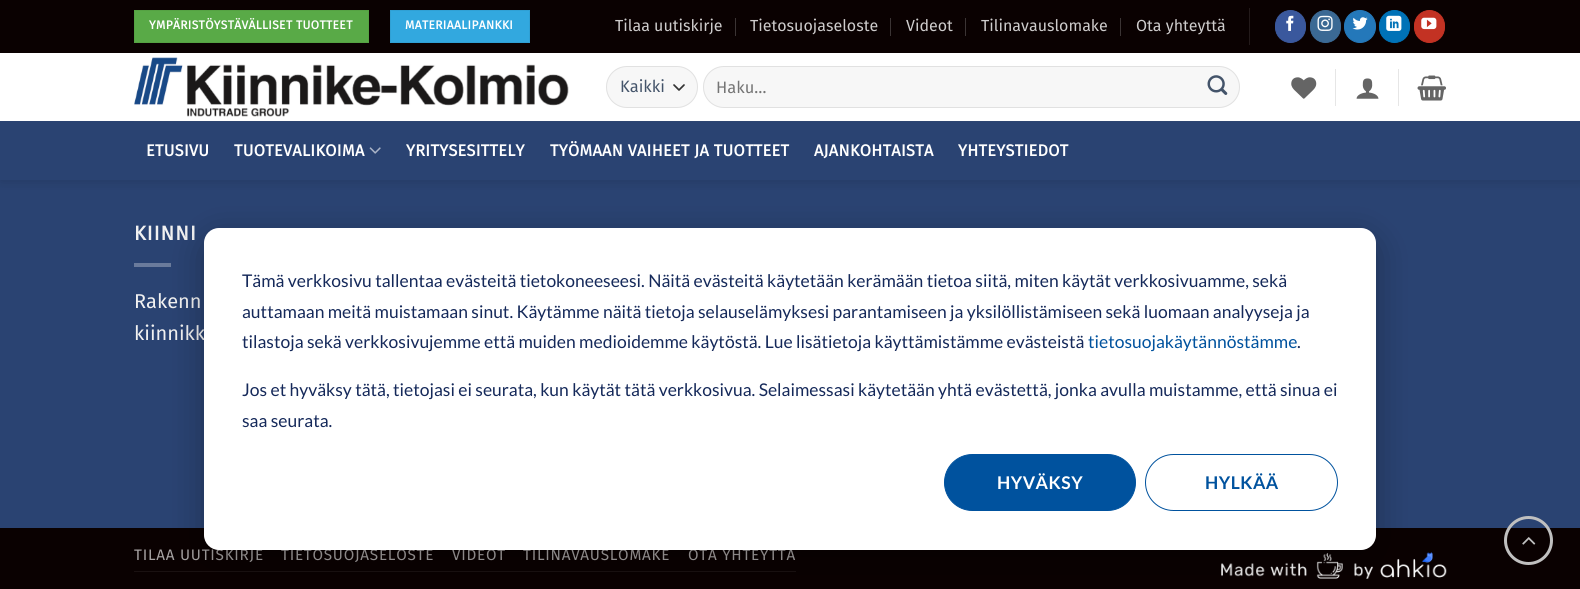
#include <cairo.h>
#include <math.h>
#include <stddef.h>


static void set_color(cairo_t *cr, unsigned color) {
    cairo_set_source_rgb(cr, (color >> 16) / 255.0, (color >> 8 & 255) / 255.0, (color & 255) / 255.0);
}

static void draw_text(cairo_t *cr, double x, double y, const char *s, const char *family, double size, int italic, int bold, unsigned color) {
    cairo_select_font_face(cr, family, italic ? CAIRO_FONT_SLANT_ITALIC : CAIRO_FONT_SLANT_NORMAL,
        bold ? CAIRO_FONT_WEIGHT_BOLD : CAIRO_FONT_WEIGHT_NORMAL);
    cairo_set_font_size(cr, size);
    set_color(cr, color);
    cairo_move_to(cr, x, y);
    cairo_show_text(cr, s);
}

static void draw_spaced(cairo_t *cr, double x, double y, const char *s, double letter, double word) {
    cairo_move_to(cr, x, y);
    while (*s) {
        char ch[5] = {0};
        int n = 0;
        do ch[n++] = *s++; while ((*s & 0xC0) == 0x80);
        cairo_show_text(cr, ch);
        cairo_rel_move_to(cr, letter + word * (*ch == ' '), 0);
    }
}

static void fill_rect(cairo_t *cr, double x, double y, double w, double h, unsigned color) {
    set_color(cr, color);
    cairo_rectangle(cr, x, y, w, h);
    cairo_fill(cr);
}

static void rounded_rect(cairo_t *cr, double x, double y, double w, double h, double r) {
    cairo_new_sub_path(cr);
    cairo_arc(cr, x + w - r, y + h - r, r, 0, M_PI / 2);
    cairo_arc(cr, x + r, y + h - r, r, M_PI / 2, M_PI);
    cairo_arc(cr, x + r, y + r, r, M_PI, 1.5 * M_PI);
    cairo_arc(cr, x + w - r, y + r, r, 1.5 * M_PI, 2 * M_PI);
    cairo_close_path(cr);
}

static void draw_shadow(cairo_t *cr, double x, double y, double w, double h, double r, double blur, double alpha) {
    cairo_push_group_with_content(cr, CAIRO_CONTENT_ALPHA);
    cairo_set_operator(cr, CAIRO_OPERATOR_SOURCE);
    for (int i = 15; i >= -15 && fmin(w, h) + blur * i / 3 > 0; i -= 2) {
        double e = blur * i / 6;
        cairo_set_source_rgba(cr, 0, 0, 0, alpha * erfc((i - 1) / 8.5) / 2);
        rounded_rect(cr, x - e, y - e, w + 2 * e, h + 2 * e, fmax(0, fmin(r + e + blur * .6, fmin(w, h) / 2 + e)));
        cairo_fill(cr);
    }
    cairo_pattern_t *soft = cairo_pop_group(cr);
    cairo_mask(cr, soft);
    cairo_pattern_destroy(soft);
}

static void draw_image(cairo_t *cr, const char *path, double x, double y, double w, double h) {
    cairo_surface_t *image = cairo_image_surface_create_from_png(path);
    cairo_save(cr);
    cairo_set_source_surface(cr, image, x, y);
    cairo_rectangle(cr, x, y, w, h);
    cairo_fill(cr);
    cairo_restore(cr);
    cairo_surface_destroy(image);
}

int main(void) {
    cairo_surface_t *surface = cairo_image_surface_create(CAIRO_FORMAT_RGB24, 1580, 589);
    cairo_t *cr = cairo_create(surface);
    cairo_font_options_t *options = cairo_font_options_create();
    cairo_font_options_set_hint_metrics(options, CAIRO_HINT_METRICS_OFF);
    cairo_font_options_set_hint_style(options, CAIRO_HINT_STYLE_NONE);
    cairo_set_font_options(cr, options);
    cairo_set_miter_limit(cr, 4);
    set_color(cr, 0x2A4372);
    cairo_paint(cr);
    set_color(cr, 0x000000);
    draw_shadow(cr, 1, 1, 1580, 180, 0, 6, 0.15);
    fill_rect(cr, 0, 0, 1580, 53, 0x0A0101);
    set_color(cr, 0x59AA47);
    cairo_rectangle(cr, 134.5, 10.5, 234, 32);
    cairo_fill_preserve(cr);
    set_color(cr, 0x55A243);
    cairo_set_line_width(cr, 1);
    cairo_stroke(cr);
    cairo_select_font_face(cr, "Fira Sans", CAIRO_FONT_SLANT_NORMAL, CAIRO_FONT_WEIGHT_BOLD);
    cairo_set_font_size(cr, 12);
    set_color(cr, 0xFFFFFF);
    draw_spaced(cr, 149, 29, "YMPÄRISTÖYSTÄVÄLLISET TUOTTEET", 0.35, 0);
    set_color(cr, 0x32A8DF);
    cairo_rectangle(cr, 390.5, 10.5, 139, 32);
    cairo_fill_preserve(cr);
    set_color(cr, 0x30A0D4);
    cairo_stroke(cr);
    set_color(cr, 0xFFFFFF);
    draw_spaced(cr, 405, 29, "MATERIAALIPANKKI", 0.35, 0);
    draw_text(cr, 615, 31, "Tilaa uutiskirje", "Fira Sans", 16, 0, 0, 0xCECCCC);
    fill_rect(cr, 735, 18, 1, 18, 0x3B3434);
    draw_text(cr, 750, 31, "Tietosuojaseloste", "Fira Sans", 16, 0, 0, 0xCECCCC);
    fill_rect(cr, 890, 18, 1, 18, 0x3B3434);
    draw_text(cr, 906, 31, "Videot", "Fira Sans", 16, 0, 0, 0xCECCCC);
    fill_rect(cr, 965, 18, 1, 18, 0x3B3434);
    draw_text(cr, 981, 31, "Tilinavauslomake", "Fira Sans", 16, 0, 0, 0xCECCCC);
    fill_rect(cr, 1120, 18, 1, 18, 0x3B3434);
    draw_text(cr, 1136, 31, "Ota yhteyttä", "Fira Sans", 16, 0, 0, 0xCECCCC);
    fill_rect(cr, 1249, 8, 1, 37, 0x231A1A);
    set_color(cr, 0x3A589D);
    rounded_rect(cr, 1275.5, 10.5, 30, 32, 15);
    cairo_fill_preserve(cr);
    cairo_stroke(cr);
    draw_image(cr, "assets/img1.png", 1286, 15, 8, 16);
    set_color(cr, 0x3B6994);
    rounded_rect(cr, 1310.5, 10.5, 30, 32, 15);
    cairo_fill_preserve(cr);
    cairo_stroke(cr);
    draw_image(cr, "assets/img2.png", 1317, 15, 16, 16);
    set_color(cr, 0x2478BA);
    rounded_rect(cr, 1344.5, 10.5, 31, 32, 15.5);
    cairo_fill_preserve(cr);
    cairo_stroke(cr);
    draw_image(cr, "assets/img3.png", 1352, 17, 16, 13);
    set_color(cr, 0x0072B7);
    rounded_rect(cr, 1379.5, 10.5, 30, 32, 15);
    cairo_fill_preserve(cr);
    cairo_stroke(cr);
    draw_image(cr, "assets/img4.png", 1386, 15, 16, 16);
    set_color(cr, 0xC33223);
    rounded_rect(cr, 1414.5, 10.5, 30, 32, 15);
    cairo_fill_preserve(cr);
    cairo_stroke(cr);
    draw_image(cr, "assets/img5.png", 1421, 17, 16, 13);
    fill_rect(cr, 0, 53, 1580, 68, 0xFFFFFF);
    draw_image(cr, "assets/img6.png", 134, 57, 435, 60);
    set_color(cr, 0xF7F7F7);
    rounded_rect(cr, 606, 66, 92, 42, 21);
    cairo_fill(cr);
    cairo_new_path(cr);
    cairo_move_to(cr, 674, 85);
    cairo_line_to(cr, 679, 90);
    cairo_line_to(cr, 684, 85);
    set_color(cr, 0x333333);
    cairo_set_line_width(cr, 1.7);
    cairo_set_line_cap(cr, CAIRO_LINE_CAP_ROUND);
    cairo_set_line_join(cr, CAIRO_LINE_JOIN_ROUND);
    cairo_stroke(cr);
    rounded_rect(cr, 606.5, 66.5, 91, 41, 20.5);
    cairo_set_source_rgba(cr, 0, 0, 0, 0.09);
    cairo_set_line_width(cr, 1);
    cairo_set_line_cap(cr, CAIRO_LINE_CAP_BUTT);
    cairo_set_line_join(cr, CAIRO_LINE_JOIN_MITER);
    cairo_stroke(cr);
    draw_text(cr, 620, 92, "Kaikki", "Fira Sans", 16.5, 0, 0, 0x44546A);
    set_color(cr, 0xF7F7F7);
    rounded_rect(cr, 703, 66, 537, 42, 21);
    cairo_fill(cr);
    rounded_rect(cr, 703.5, 66.5, 536, 41, 20.5);
    cairo_set_source_rgba(cr, 0, 0, 0, 0.09);
    cairo_stroke(cr);
    draw_text(cr, 716, 93, "Haku…", "Fira Sans", 16.5, 0, 0, 0x757575);
    draw_image(cr, "assets/img7.png", 1207, 75, 21, 20);
    draw_image(cr, "assets/img8.png", 1291, 77, 26, 22);
    fill_rect(cr, 1335, 69, 1, 37, 0xE6E6E6);
    draw_image(cr, "assets/img9.png", 1356, 78, 23, 21);
    fill_rect(cr, 1398, 69, 1, 37, 0xE6E6E6);
    draw_image(cr, "assets/img10.png", 1417, 75, 29, 26);
    fill_rect(cr, 0, 121, 1580, 59, 0x2A4372);
    fill_rect(cr, 134, 121, 1312, 1, 0x2D4571);
    cairo_select_font_face(cr, "Fira Sans", CAIRO_FONT_SLANT_NORMAL, CAIRO_FONT_WEIGHT_BOLD);
    cairo_set_font_size(cr, 16.25);
    set_color(cr, 0xFFFFFF);
    draw_spaced(cr, 146, 156, "ETUSIVU", 0.3, 0);
    draw_spaced(cr, 234, 156, "TUOTEVALIKOIMA", 0.3, 0);
    draw_image(cr, "assets/img11.png", 369, 147, 12, 7);
    draw_spaced(cr, 406, 156, "YRITYSESITTELY", 0.3, 0);
    draw_spaced(cr, 550, 156, "TYÖMAAN VAIHEET JA TUOTTEET", 0.3, 0);
    draw_spaced(cr, 814, 156, "AJANKOHTAISTA", 0.3, 0);
    draw_spaced(cr, 958, 156, "YHTEYSTIEDOT", 0.3, 0);
    cairo_set_font_size(cr, 20);
    set_color(cr, 0xF1F1F1);
    draw_spaced(cr, 134, 240, "KIINNI", 1, 0);
    fill_rect(cr, 134, 263, 37, 4, 0x6A7B9C);
    draw_text(cr, 134, 308, "Rakenn", "Fira Sans", 20, 0, 0, 0xF1F1F1);
    draw_text(cr, 134, 340, "kiinnikk", "Fira Sans", 20, 0, 0, 0xF1F1F1);
    fill_rect(cr, 0, 528, 1580, 61, 0x0A0101);
    fill_rect(cr, 134, 571, 662, 1, 0x1A1111);
    cairo_set_font_size(cr, 15.25);
    set_color(cr, 0xA7A3A3);
    draw_spaced(cr, 134, 560, "TILAA UUTISKIRJE", 0.75, 0);
    draw_spaced(cr, 281, 560, "TIETOSUOJASELOSTE", 0.75, 0);
    draw_spaced(cr, 452, 560, "VIDEOT", 0.75, 0);
    draw_spaced(cr, 523, 560, "TILINAVAUSLOMAKE", 0.75, 0);
    draw_spaced(cr, 688, 560, "OTA YHTEYTTÄ", 0.75, 0);
    draw_image(cr, "assets/img12.png", 1221, 552, 226, 27);
    cairo_arc(cr, 1528.5, 540.5, 23, 0, 2 * M_PI);
    set_color(cr, 0xC0C0C0);
    cairo_set_line_width(cr, 3);
    cairo_stroke(cr);
    draw_image(cr, "assets/img13.png", 1522, 537, 14, 8);
    set_color(cr, 0x000000);
    draw_shadow(cr, 204, 238, 1172, 322, 15, 17.5, 0.28);
    set_color(cr, 0xFFFFFF);
    rounded_rect(cr, 204, 228, 1172, 322, 15);
    cairo_fill(cr);
    draw_text(cr, 242, 287, "Tämä verkkosivu tallentaa evästeitä tietokoneeseesi. Näitä evästeitä käytetään kerämään tietoa siitä, miten käytät verkkosivuamme, sekä", "Lato", 17.5, 0, 0, 0x15295A);
    draw_text(cr, 242, 318, "auttamaan meitä muistamaan sinut. Käytämme näitä tietoja selauselämyksesi parantamiseen ja yksilöllistämiseen sekä luomaan analyyseja ja", "Lato", 17.5, 0, 0, 0x15295A);
    draw_text(cr, 242, 348, "tilastoja sekä verkkosivujemme että muiden medioidemme käytöstä. Lue lisätietoja käyttämistämme evästeistä", "Lato", 17.5, 0, 0, 0x15295A);
    draw_text(cr, 1088, 348, "tietosuojakäytännöstämme", "Lato", 17.5, 0, 0, 0x00529E);
    draw_text(cr, 1297, 348, ".", "Lato", 17.5, 0, 0, 0x15295A);
    draw_text(cr, 242, 396, "Jos et hyväksy tätä, tietojasi ei seurata, kun käytät tätä verkkosivua. Selaimessasi käytetään yhtä evästettä, jonka avulla muistamme, että sinua ei", "Lato", 17.5, 0, 0, 0x15295A);
    draw_text(cr, 242, 427, "saa seurata.", "Lato", 17.5, 0, 0, 0x15295A);
    set_color(cr, 0x00529E);
    rounded_rect(cr, 944.5, 454.5, 191, 56, 28);
    cairo_fill_preserve(cr);
    cairo_set_line_width(cr, 1);
    cairo_stroke(cr);
    cairo_select_font_face(cr, "Lato", CAIRO_FONT_SLANT_NORMAL, CAIRO_FONT_WEIGHT_BOLD);
    set_color(cr, 0xFFFFFF);
    draw_spaced(cr, 997, 489, "HYVÄKSY", 0.5, 0);
    rounded_rect(cr, 1145.5, 454.5, 192, 56, 28);
    set_color(cr, 0x00529E);
    cairo_stroke(cr);
    draw_spaced(cr, 1205, 489, "HYLKÄÄ", 0.5, 0);
    cairo_surface_write_to_png(surface, "output.png");
    cairo_font_options_destroy(options);
    cairo_destroy(cr);
    cairo_surface_destroy(surface);
    return 0;
}
